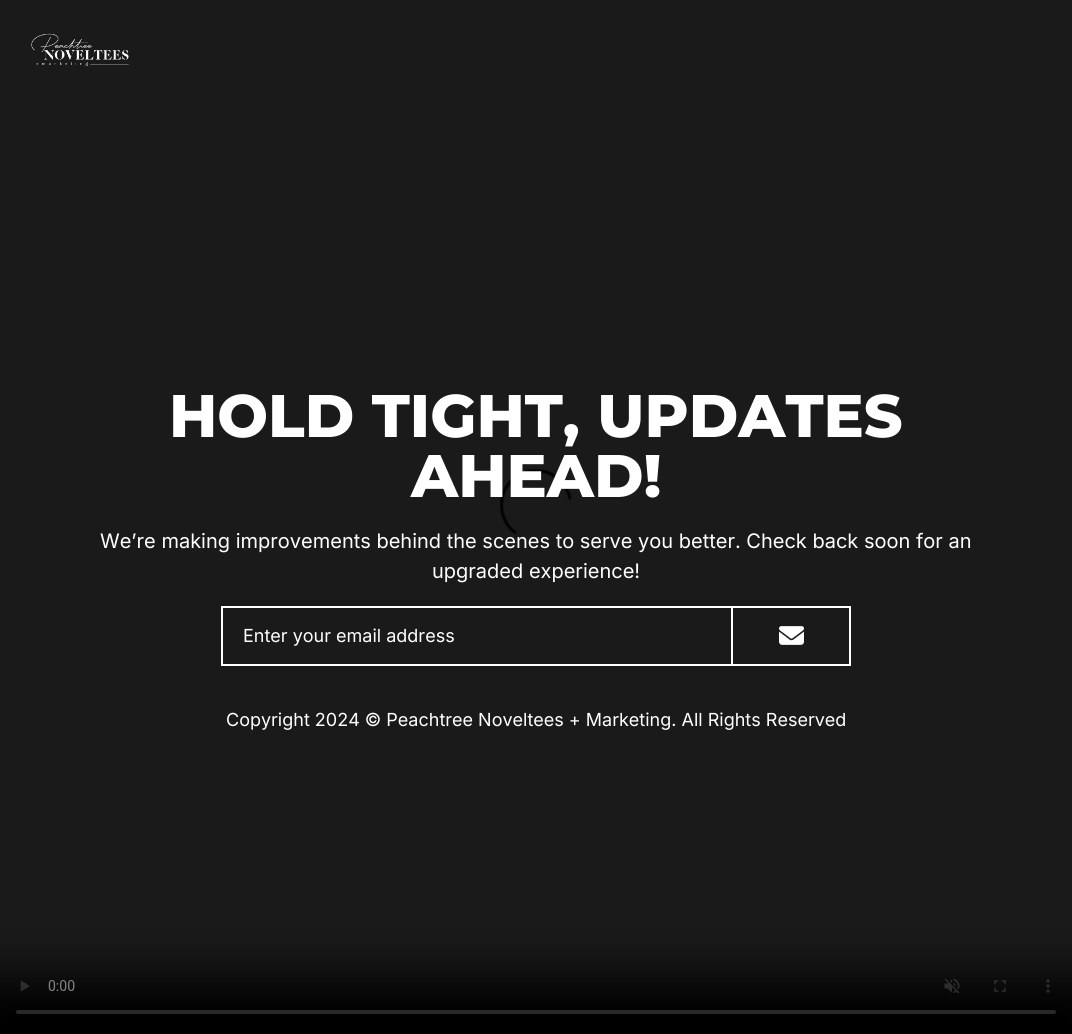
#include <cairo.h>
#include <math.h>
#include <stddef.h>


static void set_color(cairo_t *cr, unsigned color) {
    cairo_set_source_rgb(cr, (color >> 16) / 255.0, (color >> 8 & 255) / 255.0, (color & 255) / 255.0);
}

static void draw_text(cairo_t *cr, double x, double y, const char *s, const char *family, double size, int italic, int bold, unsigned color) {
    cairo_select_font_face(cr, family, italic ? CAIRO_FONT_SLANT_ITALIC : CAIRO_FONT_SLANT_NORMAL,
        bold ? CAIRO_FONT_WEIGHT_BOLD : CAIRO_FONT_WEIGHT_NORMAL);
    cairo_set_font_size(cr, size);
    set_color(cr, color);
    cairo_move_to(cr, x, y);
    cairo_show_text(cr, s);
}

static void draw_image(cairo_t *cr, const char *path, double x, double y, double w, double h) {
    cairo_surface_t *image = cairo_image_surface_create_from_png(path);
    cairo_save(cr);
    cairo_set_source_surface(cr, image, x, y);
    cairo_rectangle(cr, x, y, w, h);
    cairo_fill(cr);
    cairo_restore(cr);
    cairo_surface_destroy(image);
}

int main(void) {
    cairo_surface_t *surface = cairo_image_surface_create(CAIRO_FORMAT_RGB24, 1072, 1034);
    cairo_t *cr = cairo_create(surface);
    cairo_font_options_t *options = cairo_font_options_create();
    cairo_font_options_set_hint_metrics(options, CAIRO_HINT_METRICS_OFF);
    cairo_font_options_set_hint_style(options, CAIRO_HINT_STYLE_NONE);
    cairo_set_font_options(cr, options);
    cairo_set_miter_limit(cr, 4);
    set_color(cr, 0xFFFFFF);
    cairo_paint(cr);
    draw_image(cr, "assets/img2.png", 0, 0, 1072, 1034);
    draw_image(cr, "assets/img1.png", 31, 33, 98, 33);
    draw_text(cr, 169, 437, "HOLD TIGHT, UPDATES", "Montserrat Thin", 60, 0, 0, 0xFFFFFF);
    draw_text(cr, 411, 497, "AHEAD!", "Montserrat Thin", 60, 0, 0, 0xFFFFFF);
    draw_text(cr, 100, 548, "We’re making improvements behind the scenes to serve you better. Check back soon for an", "Inter", 20, 0, 0, 0xFFFFFF);
    draw_text(cr, 432, 578, "upgraded experience!", "Inter", 20, 0, 0, 0xFFFFFF);
    cairo_rectangle(cr, 222, 607, 628, 58);
    cairo_stroke(cr);
    draw_text(cr, 243, 642, "Enter your email address", "Inter", 18, 0, 0, 0xFFFFFF);
    cairo_rectangle(cr, 732, 607, 118, 58);
    cairo_stroke(cr);
    draw_image(cr, "assets/img3.png", 779, 626, 25, 19);
    draw_text(cr, 226, 726, "Copyright 2024 © Peachtree Noveltees + Marketing. All Rights Reserved", "Inter", 18, 0, 0, 0xFFFFFF);
    cairo_surface_write_to_png(surface, "output.png");
    cairo_font_options_destroy(options);
    cairo_destroy(cr);
    cairo_surface_destroy(surface);
    return 0;
}
